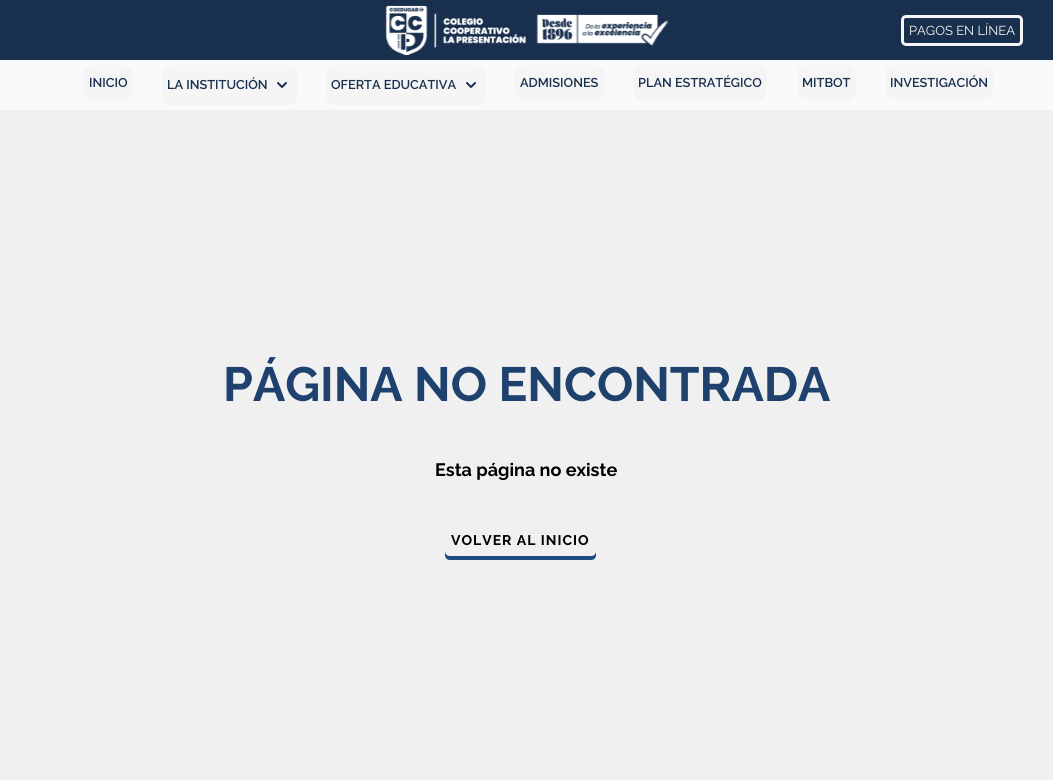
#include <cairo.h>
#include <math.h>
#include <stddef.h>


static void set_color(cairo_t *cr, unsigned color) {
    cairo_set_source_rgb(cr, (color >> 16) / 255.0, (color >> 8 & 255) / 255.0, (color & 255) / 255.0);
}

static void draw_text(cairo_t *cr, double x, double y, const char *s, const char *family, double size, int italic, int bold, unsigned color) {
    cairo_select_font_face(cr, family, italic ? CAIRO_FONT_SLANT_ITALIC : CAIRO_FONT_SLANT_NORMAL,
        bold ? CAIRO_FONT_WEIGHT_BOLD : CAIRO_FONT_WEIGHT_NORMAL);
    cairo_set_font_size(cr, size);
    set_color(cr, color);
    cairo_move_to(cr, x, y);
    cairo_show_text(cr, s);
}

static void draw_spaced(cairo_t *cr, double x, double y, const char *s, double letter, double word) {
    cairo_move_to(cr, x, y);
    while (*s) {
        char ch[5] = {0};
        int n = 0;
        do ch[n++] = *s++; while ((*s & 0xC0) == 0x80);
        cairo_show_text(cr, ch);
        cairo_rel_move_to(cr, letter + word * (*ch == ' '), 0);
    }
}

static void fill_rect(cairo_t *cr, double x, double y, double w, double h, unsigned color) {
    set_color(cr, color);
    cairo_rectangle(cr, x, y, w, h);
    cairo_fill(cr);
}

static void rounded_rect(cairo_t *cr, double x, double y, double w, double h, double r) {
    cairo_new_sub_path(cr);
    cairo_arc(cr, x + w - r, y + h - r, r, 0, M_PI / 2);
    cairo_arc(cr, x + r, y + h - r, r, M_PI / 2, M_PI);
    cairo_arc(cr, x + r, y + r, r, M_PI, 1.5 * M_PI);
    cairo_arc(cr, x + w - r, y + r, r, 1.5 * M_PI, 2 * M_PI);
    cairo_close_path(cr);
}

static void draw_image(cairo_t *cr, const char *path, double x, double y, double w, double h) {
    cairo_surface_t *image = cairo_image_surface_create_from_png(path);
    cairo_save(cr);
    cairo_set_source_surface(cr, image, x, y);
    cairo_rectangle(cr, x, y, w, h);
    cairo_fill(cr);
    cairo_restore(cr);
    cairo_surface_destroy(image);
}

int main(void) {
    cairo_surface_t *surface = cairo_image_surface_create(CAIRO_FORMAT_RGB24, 1053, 780);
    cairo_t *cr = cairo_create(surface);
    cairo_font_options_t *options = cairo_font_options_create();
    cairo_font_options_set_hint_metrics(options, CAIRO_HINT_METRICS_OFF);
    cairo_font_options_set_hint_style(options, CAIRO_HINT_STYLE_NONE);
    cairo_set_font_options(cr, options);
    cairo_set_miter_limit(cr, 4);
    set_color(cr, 0xF0F0F0);
    cairo_paint(cr);
    fill_rect(cr, 0, 0, 1053, 60, 0x192F4E);
    draw_image(cr, "assets/img1.png", 385, 5, 284, 50);
    rounded_rect(cr, 902.5, 16.5, 119, 28, 3.5);
    set_color(cr, 0xF5F5F5);
    cairo_set_line_width(cr, 3);
    cairo_stroke(cr);
    draw_text(cr, 909, 35, "PAGOS EN LÍNEA", "Raleway", 13, 0, 0, 0xF5F5F5);
    fill_rect(cr, 0, 60, 1053, 50, 0xF9FAFB);
    set_color(cr, 0xF5F5F5);
    rounded_rect(cr, 84, 65, 48, 35, 8);
    cairo_fill(cr);
    draw_text(cr, 89, 87, "INICIO", "Raleway SemiBold", 12.75, 0, 0, 0x192F4E);
    set_color(cr, 0xF5F5F5);
    rounded_rect(cr, 162, 65, 135, 40, 8);
    cairo_fill(cr);
    draw_text(cr, 167, 89, "LA INSTITUCIÓN", "Raleway SemiBold", 12.75, 0, 0, 0x192F4E);
    draw_image(cr, "assets/img2.png", 277, 82, 10, 6);
    set_color(cr, 0xF5F5F5);
    rounded_rect(cr, 326, 65, 160, 40, 8);
    cairo_fill(cr);
    draw_text(cr, 331, 89, "OFERTA EDUCATIVA", "Raleway SemiBold", 12.75, 0, 0, 0x192F4E);
    draw_image(cr, "assets/img2.png", 466, 82, 10, 6);
    set_color(cr, 0xF5F5F5);
    rounded_rect(cr, 515, 65, 89, 35, 8);
    cairo_fill(cr);
    draw_text(cr, 520, 87, "ADMISIONES", "Raleway SemiBold", 12.75, 0, 0, 0x192F4E);
    set_color(cr, 0xF5F5F5);
    rounded_rect(cr, 633, 65, 134, 35, 8);
    cairo_fill(cr);
    draw_text(cr, 638, 87, "PLAN ESTRATÉGICO", "Raleway SemiBold", 12.75, 0, 0, 0x192F4E);
    set_color(cr, 0xF5F5F5);
    rounded_rect(cr, 797, 65, 59, 35, 8);
    cairo_fill(cr);
    draw_text(cr, 802, 87, "MITBOT", "Raleway SemiBold", 12.75, 0, 0, 0x192F4E);
    set_color(cr, 0xF5F5F5);
    rounded_rect(cr, 885, 65, 108, 35, 8);
    cairo_fill(cr);
    draw_text(cr, 890, 87, "INVESTIGACIÓN", "Raleway SemiBold", 12.75, 0, 0, 0x192F4E);
    draw_text(cr, 223, 401, "PÁGINA NO ENCONTRADA", "Raleway", 48, 0, 1, 0x1E416E);
    draw_text(cr, 435, 476, "Esta página no existe", "Raleway", 18, 0, 1, 0x000000);
    set_color(cr, 0x1F4B85);
    cairo_new_path(cr);
    cairo_move_to(cr, 445, 551);
    cairo_line_to(cr, 445, 555);
    cairo_curve_to(cr, 445, 558, 447, 560, 450, 560);
    cairo_line_to(cr, 591, 560);
    cairo_curve_to(cr, 594, 560, 596, 558, 596, 555);
    cairo_line_to(cr, 596, 551);
    cairo_curve_to(cr, 596, 554, 594, 556, 591, 556);
    cairo_line_to(cr, 450, 556);
    cairo_curve_to(cr, 447, 556, 445, 554, 445, 551);
    cairo_close_path(cr);
    cairo_fill(cr);
    cairo_set_font_size(cr, 14);
    set_color(cr, 0x000000);
    draw_spaced(cr, 451, 545, "VOLVER AL INICIO", 1, 0);
    cairo_surface_write_to_png(surface, "output.png");
    cairo_font_options_destroy(options);
    cairo_destroy(cr);
    cairo_surface_destroy(surface);
    return 0;
}
